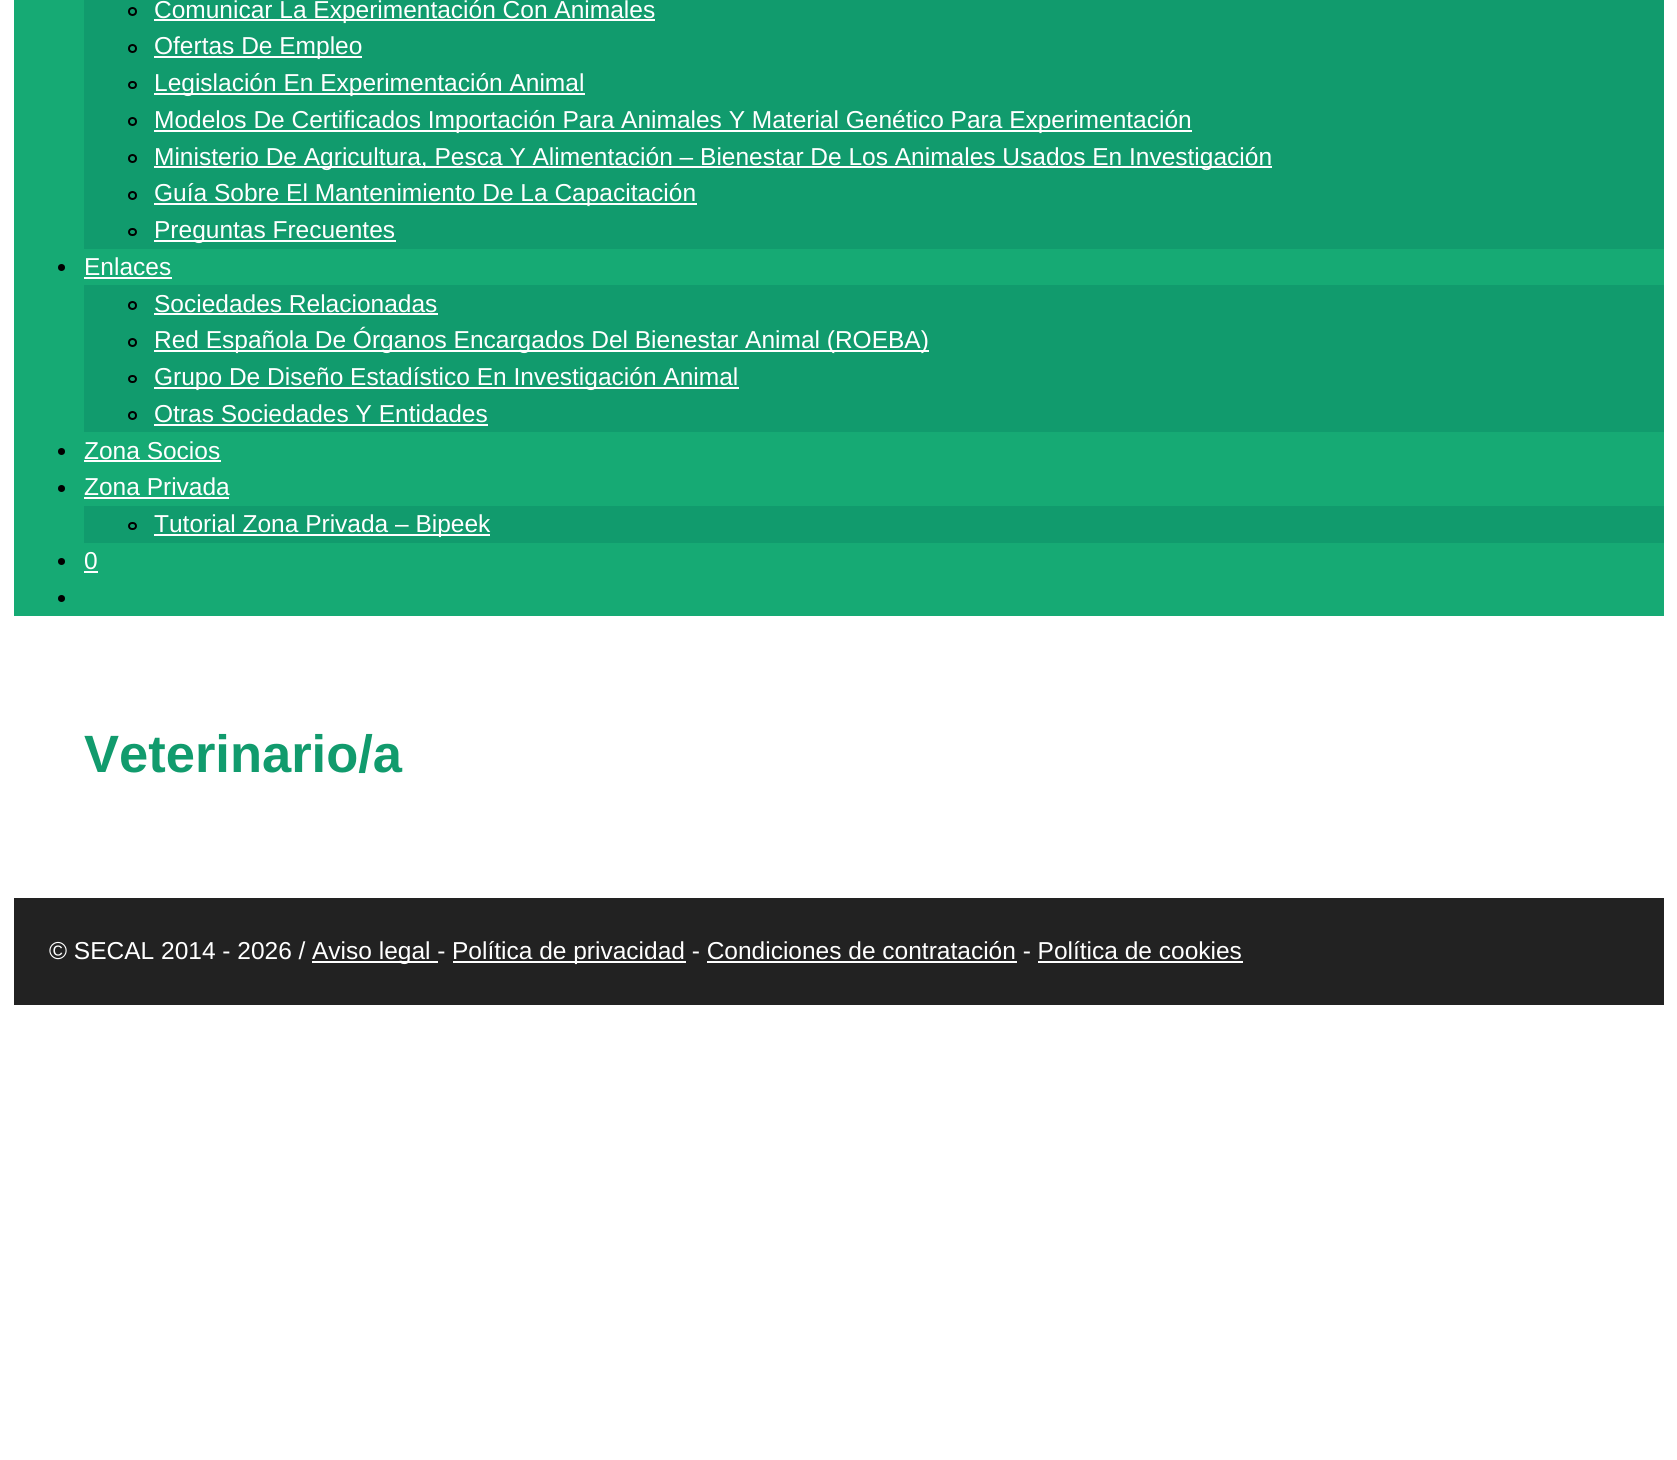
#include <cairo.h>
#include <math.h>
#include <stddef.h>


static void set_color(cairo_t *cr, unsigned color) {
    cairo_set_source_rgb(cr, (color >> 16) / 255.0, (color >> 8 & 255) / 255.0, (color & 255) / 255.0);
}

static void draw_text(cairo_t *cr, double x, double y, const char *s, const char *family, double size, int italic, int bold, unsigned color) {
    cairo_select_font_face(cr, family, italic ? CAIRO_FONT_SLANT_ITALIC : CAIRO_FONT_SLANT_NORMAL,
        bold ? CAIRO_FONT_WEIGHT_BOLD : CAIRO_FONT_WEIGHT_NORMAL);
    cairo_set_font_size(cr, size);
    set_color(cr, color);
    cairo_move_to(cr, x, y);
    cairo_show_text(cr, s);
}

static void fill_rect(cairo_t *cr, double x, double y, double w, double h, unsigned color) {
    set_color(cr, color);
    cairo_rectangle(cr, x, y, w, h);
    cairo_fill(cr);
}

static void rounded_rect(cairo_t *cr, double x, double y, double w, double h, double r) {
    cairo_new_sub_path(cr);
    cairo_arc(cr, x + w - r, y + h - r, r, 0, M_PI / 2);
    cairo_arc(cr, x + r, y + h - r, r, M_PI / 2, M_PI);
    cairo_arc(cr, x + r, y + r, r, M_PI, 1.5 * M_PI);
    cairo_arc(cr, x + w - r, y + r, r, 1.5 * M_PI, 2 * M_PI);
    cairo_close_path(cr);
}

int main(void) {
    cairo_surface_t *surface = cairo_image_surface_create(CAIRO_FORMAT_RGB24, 1677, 1460);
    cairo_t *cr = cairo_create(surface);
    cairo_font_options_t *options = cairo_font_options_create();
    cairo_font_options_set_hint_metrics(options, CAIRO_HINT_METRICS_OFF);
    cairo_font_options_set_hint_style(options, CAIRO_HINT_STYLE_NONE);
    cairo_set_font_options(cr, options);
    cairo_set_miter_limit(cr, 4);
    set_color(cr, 0xFFFFFF);
    cairo_paint(cr);
    fill_rect(cr, 14, 0, 1650, 616, 0x16AA74);
    fill_rect(cr, 84, 0, 1580, 249, 0x119B6D);
    cairo_arc(cr, 132.5, 11.5, 3.5, 0, 2 * M_PI);
    set_color(cr, 0x000000);
    cairo_stroke(cr);
    fill_rect(cr, 154, 19, 501, 2, 0xFFFFFF);
    draw_text(cr, 154, 18, "Comunicar La Experimentación Con Animales", "Liberation Sans", 24.5, 0, 0, 0xFFFFFF);
    cairo_new_path(cr);
    cairo_arc(cr, 132.5, 48.5, 3.5, 0, 2 * M_PI);
    set_color(cr, 0x000000);
    cairo_stroke(cr);
    fill_rect(cr, 154, 56, 208, 2, 0xFFFFFF);
    draw_text(cr, 154, 54, "Ofertas De Empleo", "Liberation Sans", 24.5, 0, 0, 0xFFFFFF);
    rounded_rect(cr, 129, 82, 7, 6, 3);
    set_color(cr, 0x000000);
    cairo_stroke(cr);
    fill_rect(cr, 154, 93, 431, 2, 0xFFFFFF);
    draw_text(cr, 154, 91, "Legislación En Experimentación Animal", "Liberation Sans", 24.5, 0, 0, 0xFFFFFF);
    cairo_new_path(cr);
    cairo_arc(cr, 132.5, 121.5, 3.5, 0, 2 * M_PI);
    set_color(cr, 0x000000);
    cairo_stroke(cr);
    fill_rect(cr, 154, 130, 1038, 2, 0xFFFFFF);
    draw_text(cr, 154, 128, "Modelos De Certificados Importación Para Animales Y Material Genético Para Experimentación", "Liberation Sans", 24.5, 0, 0, 0xFFFFFF);
    cairo_new_path(cr);
    cairo_arc(cr, 132.5, 158.5, 3.5, 0, 2 * M_PI);
    set_color(cr, 0x000000);
    cairo_stroke(cr);
    fill_rect(cr, 154, 166, 1118, 2, 0xFFFFFF);
    draw_text(cr, 154, 165, "Ministerio De Agricultura, Pesca Y Alimentación – Bienestar De Los Animales Usados En Investigación", "Liberation Sans", 24.5, 0, 0, 0xFFFFFF);
    cairo_new_path(cr);
    cairo_arc(cr, 132.5, 195.5, 3.5, 0, 2 * M_PI);
    set_color(cr, 0x000000);
    cairo_stroke(cr);
    fill_rect(cr, 154, 203, 543, 2, 0xFFFFFF);
    draw_text(cr, 154, 201, "Guía Sobre El Mantenimiento De La Capacitación", "Liberation Sans", 24.5, 0, 0, 0xFFFFFF);
    rounded_rect(cr, 129, 229, 7, 6, 3);
    set_color(cr, 0x000000);
    cairo_stroke(cr);
    fill_rect(cr, 154, 240, 242, 2, 0xFFFFFF);
    draw_text(cr, 154, 238, "Preguntas Frecuentes", "Liberation Sans", 24.5, 0, 0, 0xFFFFFF);
    set_color(cr, 0x000000);
    cairo_new_path(cr);
    cairo_arc(cr, 61.5, 267.5, 3.5, 0, 2 * M_PI);
    cairo_fill(cr);
    draw_text(cr, 84, 275, "Enlaces", "Liberation Sans", 24.5, 0, 0, 0xFFFFFF);
    fill_rect(cr, 84, 277, 88, 2, 0xFFFFFF);
    fill_rect(cr, 84, 285, 1580, 147, 0x119B6D);
    cairo_new_path(cr);
    cairo_arc(cr, 132.5, 305.5, 3.5, 0, 2 * M_PI);
    set_color(cr, 0x000000);
    cairo_stroke(cr);
    draw_text(cr, 154, 312, "Sociedades Relacionadas", "Liberation Sans", 24.5, 0, 0, 0xFFFFFF);
    fill_rect(cr, 154, 313, 284, 2, 0xFFFFFF);
    cairo_new_path(cr);
    cairo_arc(cr, 132.5, 342.5, 3.5, 0, 2 * M_PI);
    set_color(cr, 0x000000);
    cairo_stroke(cr);
    fill_rect(cr, 154, 350, 775, 2, 0xFFFFFF);
    draw_text(cr, 154, 348, "Red Española De Órganos Encargados Del Bienestar Animal (ROEBA)", "Liberation Sans", 24.5, 0, 0, 0xFFFFFF);
    rounded_rect(cr, 129, 376, 7, 6, 3);
    set_color(cr, 0x000000);
    cairo_stroke(cr);
    fill_rect(cr, 154, 387, 585, 2, 0xFFFFFF);
    draw_text(cr, 154, 385, "Grupo De Diseño Estadístico En Investigación Animal", "Liberation Sans", 24.5, 0, 0, 0xFFFFFF);
    cairo_new_path(cr);
    cairo_arc(cr, 132.5, 415.5, 3.5, 0, 2 * M_PI);
    set_color(cr, 0x000000);
    cairo_stroke(cr);
    draw_text(cr, 154, 422, "Otras Sociedades Y Entidades", "Liberation Sans", 24.5, 0, 0, 0xFFFFFF);
    fill_rect(cr, 154, 424, 334, 2, 0xFFFFFF);
    set_color(cr, 0x000000);
    cairo_new_path(cr);
    cairo_arc(cr, 61.5, 451.5, 3.5, 0, 2 * M_PI);
    cairo_fill(cr);
    draw_text(cr, 84, 459, "Zona Socios", "Liberation Sans", 24.5, 0, 0, 0xFFFFFF);
    fill_rect(cr, 84, 460, 137, 2, 0xFFFFFF);
    set_color(cr, 0x000000);
    cairo_new_path(cr);
    cairo_arc(cr, 61.5, 488.5, 3.5, 0, 2 * M_PI);
    cairo_fill(cr);
    draw_text(cr, 84, 495, "Zona Privada", "Liberation Sans", 24.5, 0, 0, 0xFFFFFF);
    fill_rect(cr, 84, 497, 145, 2, 0xFFFFFF);
    fill_rect(cr, 84, 506, 1580, 37, 0x119B6D);
    rounded_rect(cr, 129, 523, 7, 6, 3);
    set_color(cr, 0x000000);
    cairo_stroke(cr);
    fill_rect(cr, 154, 534, 336, 2, 0xFFFFFF);
    draw_text(cr, 154, 532, "Tutorial Zona Privada – Bipeek", "Liberation Sans", 24.5, 0, 0, 0xFFFFFF);
    set_color(cr, 0x000000);
    cairo_new_path(cr);
    cairo_arc(cr, 61.5, 561.5, 3.5, 0, 2 * M_PI);
    cairo_fill(cr);
    draw_text(cr, 84, 569, "0", "Liberation Sans", 24.5, 0, 0, 0xFFFFFF);
    fill_rect(cr, 84, 571, 14, 2, 0xFFFFFF);
    set_color(cr, 0x000000);
    cairo_new_path(cr);
    cairo_arc(cr, 61.5, 598.5, 3.5, 0, 2 * M_PI);
    cairo_fill(cr);
    draw_text(cr, 84, 772, "Veterinario/a", "Liberation Sans", 52.5, 0, 1, 0x119B6D);
    fill_rect(cr, 14, 898, 1650, 107, 0x222222);
    draw_text(cr, 49, 959, "© SECAL 2014 - 2026 /", "Liberation Sans", 24.5, 0, 0, 0xFFFFFF);
    fill_rect(cr, 312, 961, 126, 2, 0xFFFFFF);
    draw_text(cr, 312, 959, "Aviso legal -", "Liberation Sans", 24.5, 0, 0, 0xFFFFFF);
    fill_rect(cr, 453, 961, 233, 2, 0xFFFFFF);
    draw_text(cr, 452, 959, "Política de privacidad - Condiciones de contratación - Política de cookies", "Liberation Sans", 24.5, 0, 0, 0xFFFFFF);
    fill_rect(cr, 707, 961, 310, 2, 0xFFFFFF);
    fill_rect(cr, 1038, 961, 205, 2, 0xFFFFFF);
    cairo_surface_write_to_png(surface, "output.png");
    cairo_font_options_destroy(options);
    cairo_destroy(cr);
    cairo_surface_destroy(surface);
    return 0;
}
